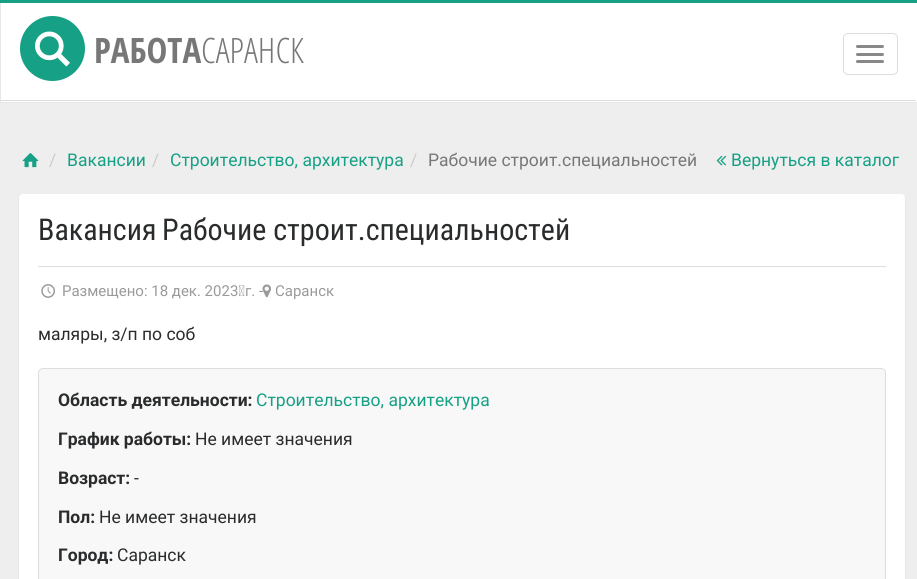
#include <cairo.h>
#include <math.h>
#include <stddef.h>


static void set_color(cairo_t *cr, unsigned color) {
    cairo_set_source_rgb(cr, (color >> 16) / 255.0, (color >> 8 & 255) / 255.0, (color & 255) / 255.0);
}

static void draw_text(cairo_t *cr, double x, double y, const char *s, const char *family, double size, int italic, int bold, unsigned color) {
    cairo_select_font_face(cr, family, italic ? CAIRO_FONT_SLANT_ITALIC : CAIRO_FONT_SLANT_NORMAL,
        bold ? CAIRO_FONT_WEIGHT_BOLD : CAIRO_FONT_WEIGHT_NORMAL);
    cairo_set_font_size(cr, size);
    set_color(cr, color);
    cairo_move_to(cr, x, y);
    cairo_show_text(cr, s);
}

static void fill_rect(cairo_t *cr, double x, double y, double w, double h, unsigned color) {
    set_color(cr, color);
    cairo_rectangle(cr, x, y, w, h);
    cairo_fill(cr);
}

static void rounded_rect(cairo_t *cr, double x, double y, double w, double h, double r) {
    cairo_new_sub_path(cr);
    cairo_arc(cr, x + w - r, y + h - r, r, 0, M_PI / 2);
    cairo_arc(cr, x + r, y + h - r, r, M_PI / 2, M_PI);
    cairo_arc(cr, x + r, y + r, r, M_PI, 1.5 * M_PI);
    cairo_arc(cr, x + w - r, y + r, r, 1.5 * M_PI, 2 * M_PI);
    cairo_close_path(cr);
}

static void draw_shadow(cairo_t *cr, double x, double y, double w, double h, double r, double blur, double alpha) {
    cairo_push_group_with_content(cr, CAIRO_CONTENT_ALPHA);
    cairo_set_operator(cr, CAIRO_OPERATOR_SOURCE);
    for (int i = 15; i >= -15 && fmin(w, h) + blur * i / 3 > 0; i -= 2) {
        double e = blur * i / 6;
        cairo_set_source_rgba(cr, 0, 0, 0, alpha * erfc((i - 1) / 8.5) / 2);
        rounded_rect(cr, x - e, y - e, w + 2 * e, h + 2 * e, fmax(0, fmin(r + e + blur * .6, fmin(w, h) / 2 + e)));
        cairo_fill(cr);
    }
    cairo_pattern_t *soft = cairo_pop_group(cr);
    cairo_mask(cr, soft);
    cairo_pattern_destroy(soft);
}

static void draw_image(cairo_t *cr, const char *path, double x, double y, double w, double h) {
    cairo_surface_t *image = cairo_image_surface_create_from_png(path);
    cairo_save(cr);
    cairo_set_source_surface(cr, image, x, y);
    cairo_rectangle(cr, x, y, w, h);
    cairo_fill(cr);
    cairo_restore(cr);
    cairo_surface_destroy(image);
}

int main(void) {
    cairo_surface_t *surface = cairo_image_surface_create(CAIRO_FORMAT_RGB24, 917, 579);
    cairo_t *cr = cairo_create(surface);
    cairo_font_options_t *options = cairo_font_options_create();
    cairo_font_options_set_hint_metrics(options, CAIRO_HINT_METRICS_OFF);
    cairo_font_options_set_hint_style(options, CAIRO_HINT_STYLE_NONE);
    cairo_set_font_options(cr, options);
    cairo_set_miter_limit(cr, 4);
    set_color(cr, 0xEEEEEE);
    cairo_paint(cr);
    fill_rect(cr, 1, 3, 916, 99, 0xFFFFFF);
    cairo_rectangle(cr, 0.5, 0.5, 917, 102);
    set_color(cr, 0xE7E7E7);
    cairo_set_line_width(cr, 1);
    cairo_stroke(cr);
    fill_rect(cr, 0, 0, 917, 3, 0x16A085);
    fill_rect(cr, 1, 100, 915, 1, 0xDDDDDD);
    set_color(cr, 0x16A085);
    cairo_arc(cr, 52.5, 48.5, 32.5, 0, 2 * M_PI);
    cairo_fill(cr);
    draw_image(cr, "assets/img1.png", 35, 31, 35, 36);
    draw_text(cr, 94, 63, "РАБОТА", "Open Sans Condensed", 35, 0, 1, 0x777777);
    draw_text(cr, 201, 63, "САРАНСК", "Open Sans Condensed Light", 35, 0, 0, 0x777777);
    rounded_rect(cr, 843.5, 33.5, 54, 41, 4.5);
    set_color(cr, 0xDDDDDD);
    cairo_stroke(cr);
    set_color(cr, 0x888888);
    rounded_rect(cr, 856, 45, 28, 3, 1.5);
    cairo_fill(cr);
    rounded_rect(cr, 856, 53, 28, 3, 1.5);
    cairo_fill(cr);
    rounded_rect(cr, 856, 60, 28, 3, 1.5);
    cairo_fill(cr);
    draw_image(cr, "assets/img2.png", 22, 153, 17, 15);
    draw_text(cr, 49, 166, "/", "Roboto", 17.5, 0, 0, 0xCCCCCC);
    draw_text(cr, 67, 166, "Вакансии", "Roboto", 17.5, 0, 0, 0x16A085);
    draw_text(cr, 152, 166, "/", "Roboto", 17.5, 0, 0, 0xCCCCCC);
    draw_text(cr, 170, 166, "Строительство, архитектура", "Roboto", 17.5, 0, 0, 0x16A085);
    draw_text(cr, 410, 166, "/", "Roboto", 17.5, 0, 0, 0xCCCCCC);
    draw_text(cr, 428, 166, "Рабочие строит.специальностей", "Roboto", 17.5, 0, 0, 0x777777);
    draw_image(cr, "assets/img3.png", 716, 155, 11, 11);
    draw_text(cr, 731, 166, "Вернуться в каталог", "Roboto", 17.5, 0, 0, 0x16A085);
    set_color(cr, 0xB4B4B4);
    draw_shadow(cr, 19, 195, 886, 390, 4, 0.5, 0.5);
    set_color(cr, 0xFFFFFF);
    rounded_rect(cr, 19, 194, 886, 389, 4);
    cairo_fill(cr);
    draw_text(cr, 38, 240, "Вакансия", "Roboto Condensed", 30, 0, 0, 0x292B2C);
    draw_text(cr, 162, 240, "Рабочие строит.специальностей", "Roboto Condensed", 30, 0, 0, 0x292B2C);
    fill_rect(cr, 38, 266, 848, 1, 0xDDDDDD);
    draw_image(cr, "assets/img4.png", 41, 284, 14, 14);
    draw_text(cr, 62, 296, "Размещено: 18 дек. 2023 г. -", "Roboto", 15, 0, 0, 0x9A9A9A);
    draw_image(cr, "assets/img5.png", 262, 284, 9, 14);
    draw_text(cr, 275, 296, "Саранск", "Roboto", 15, 0, 0, 0x9A9A9A);
    draw_text(cr, 38, 340, "маляры, з/п по соб", "Roboto", 17.5, 0, 0, 0x292B2C);
    set_color(cr, 0xF8F8F8);
    rounded_rect(cr, 38.5, 368.5, 847, 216, 4.5);
    cairo_fill_preserve(cr);
    set_color(cr, 0xDDDDDD);
    cairo_stroke(cr);
    draw_text(cr, 58, 406, "Область деятельности:", "Roboto", 17.5, 0, 1, 0x292B2C);
    draw_text(cr, 256, 406, "Строительство, архитектура", "Roboto", 17.5, 0, 0, 0x16A085);
    draw_text(cr, 58, 445, "График работы:", "Roboto", 17.5, 0, 1, 0x292B2C);
    draw_text(cr, 195, 445, "Не имеет значения", "Roboto", 17.5, 0, 0, 0x292B2C);
    draw_text(cr, 58, 484, "Возраст:", "Roboto", 17.5, 0, 1, 0x292B2C);
    draw_text(cr, 134, 484, "-", "Roboto", 17.5, 0, 0, 0x292B2C);
    draw_text(cr, 58, 523, "Пол:", "Roboto", 17.5, 0, 1, 0x292B2C);
    draw_text(cr, 99, 523, "Не имеет значения", "Roboto", 17.5, 0, 0, 0x292B2C);
    draw_text(cr, 58, 561, "Город:", "Roboto", 17.5, 0, 1, 0x292B2C);
    draw_text(cr, 117, 561, "Саранск", "Roboto", 17.5, 0, 0, 0x292B2C);
    cairo_surface_write_to_png(surface, "output.png");
    cairo_font_options_destroy(options);
    cairo_destroy(cr);
    cairo_surface_destroy(surface);
    return 0;
}
